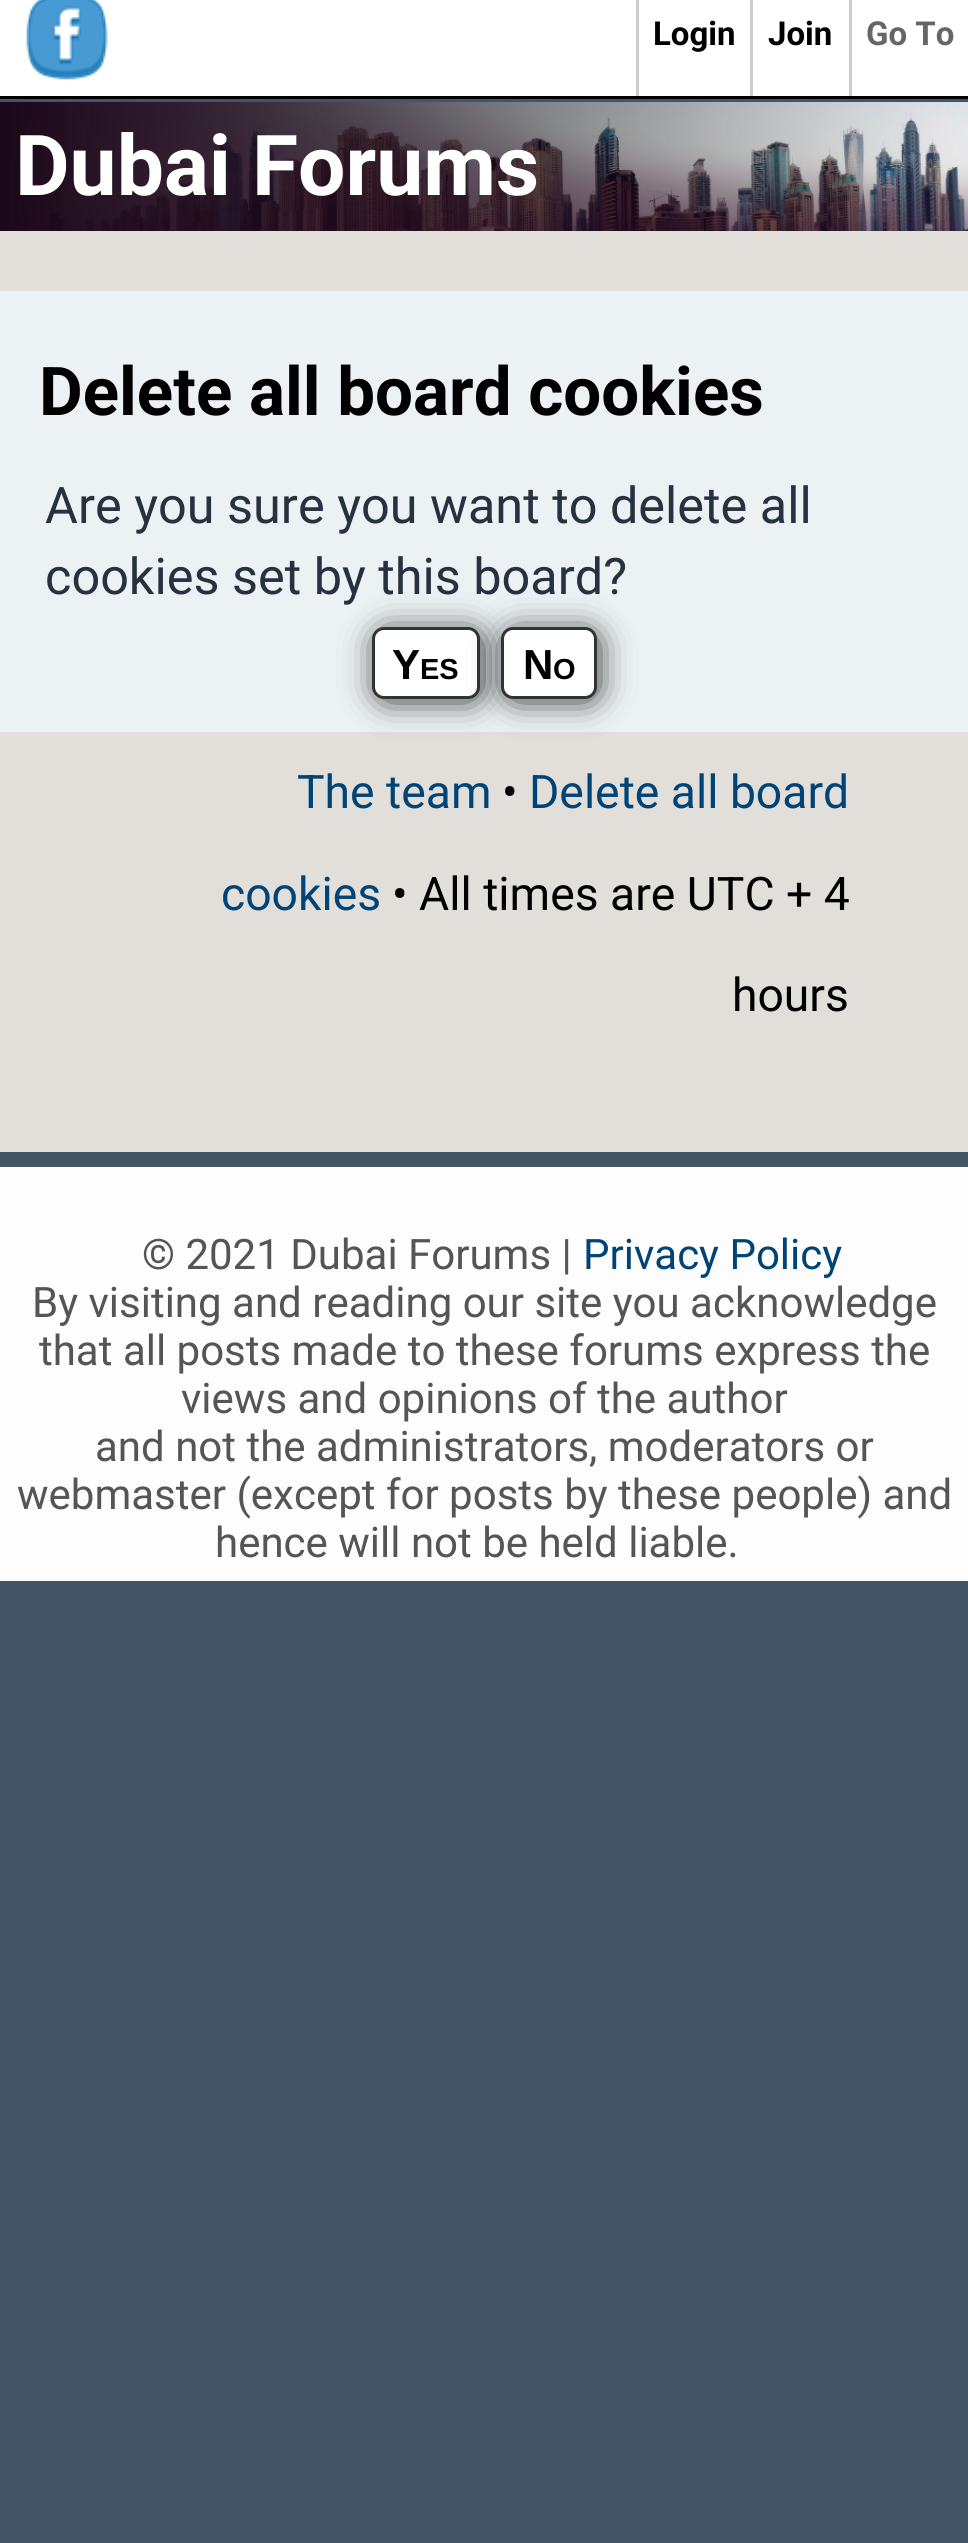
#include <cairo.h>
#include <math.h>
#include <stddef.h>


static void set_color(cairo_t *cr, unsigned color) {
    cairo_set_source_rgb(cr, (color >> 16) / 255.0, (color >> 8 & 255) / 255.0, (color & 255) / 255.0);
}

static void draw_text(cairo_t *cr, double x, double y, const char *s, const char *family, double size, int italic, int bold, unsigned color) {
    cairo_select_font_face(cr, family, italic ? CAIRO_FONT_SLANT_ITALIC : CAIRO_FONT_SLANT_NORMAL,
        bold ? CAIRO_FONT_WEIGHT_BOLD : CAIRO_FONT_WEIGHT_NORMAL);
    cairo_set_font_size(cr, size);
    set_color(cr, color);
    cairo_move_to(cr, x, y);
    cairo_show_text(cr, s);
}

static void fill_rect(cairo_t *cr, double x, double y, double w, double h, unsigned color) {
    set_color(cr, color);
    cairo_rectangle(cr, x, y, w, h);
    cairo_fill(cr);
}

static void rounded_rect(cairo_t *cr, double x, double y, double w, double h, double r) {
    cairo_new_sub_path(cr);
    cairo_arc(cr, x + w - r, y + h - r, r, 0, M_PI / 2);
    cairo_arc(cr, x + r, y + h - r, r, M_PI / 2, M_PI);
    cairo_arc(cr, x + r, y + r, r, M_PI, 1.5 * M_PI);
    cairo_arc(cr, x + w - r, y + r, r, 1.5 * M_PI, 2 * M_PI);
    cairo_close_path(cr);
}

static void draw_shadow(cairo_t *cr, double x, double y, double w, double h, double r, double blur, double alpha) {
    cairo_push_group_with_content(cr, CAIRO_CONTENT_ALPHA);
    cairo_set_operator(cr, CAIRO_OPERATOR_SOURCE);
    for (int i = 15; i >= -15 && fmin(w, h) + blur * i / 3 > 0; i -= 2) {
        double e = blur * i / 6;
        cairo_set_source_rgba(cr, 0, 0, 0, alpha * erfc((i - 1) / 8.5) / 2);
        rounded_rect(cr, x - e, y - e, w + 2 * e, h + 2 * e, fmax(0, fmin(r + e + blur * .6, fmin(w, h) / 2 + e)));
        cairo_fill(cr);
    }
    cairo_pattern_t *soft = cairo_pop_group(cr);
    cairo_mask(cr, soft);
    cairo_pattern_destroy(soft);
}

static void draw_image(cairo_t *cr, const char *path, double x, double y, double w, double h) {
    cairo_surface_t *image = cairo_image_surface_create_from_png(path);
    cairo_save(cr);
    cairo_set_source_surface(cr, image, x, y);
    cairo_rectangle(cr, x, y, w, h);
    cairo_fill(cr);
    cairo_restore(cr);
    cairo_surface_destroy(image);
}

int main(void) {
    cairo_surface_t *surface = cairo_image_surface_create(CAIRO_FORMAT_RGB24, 968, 2543);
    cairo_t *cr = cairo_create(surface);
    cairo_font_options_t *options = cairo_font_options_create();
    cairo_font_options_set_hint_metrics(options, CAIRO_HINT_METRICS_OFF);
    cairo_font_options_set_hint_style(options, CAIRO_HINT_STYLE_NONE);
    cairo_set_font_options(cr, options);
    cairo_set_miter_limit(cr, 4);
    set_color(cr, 0x445566);
    cairo_paint(cr);
    fill_rect(cr, 0, 0, 968, 96, 0xFFFFFF);
    fill_rect(cr, 0, 96, 968, 3, 0x000000);
    draw_image(cr, "assets/img1.png", 26, 0, 82, 80);
    fill_rect(cr, 636, 0, 3, 96, 0xCCCCCC);
    draw_text(cr, 653, 45, "Login", "Roboto", 33, 0, 1, 0x000000);
    fill_rect(cr, 750, 0, 3, 96, 0xCCCCCC);
    draw_text(cr, 768, 45, "Join", "Roboto", 33, 0, 1, 0x000000);
    fill_rect(cr, 849, 0, 3, 96, 0xCCCCCC);
    draw_text(cr, 866, 45, "Go To", "Roboto", 33, 0, 1, 0x666666);
    fill_rect(cr, 0, 231, 968, 921, 0xE2DFDA);
    draw_image(cr, "assets/img2.png", 0, 102, 968, 129);
    draw_text(cr, 15, 195, "Dubai Forums", "Roboto", 84, 0, 1, 0xFFFFFF);
    fill_rect(cr, 0, 291, 968, 441, 0xECF1F3);
    draw_text(cr, 39, 415, "Delete all board cookies", "Roboto", 67.25, 0, 1, 0x000000);
    draw_text(cr, 45, 523, "Are you sure you want to delete all", "Roboto", 50.4, 0, 0, 0x28313F);
    draw_text(cr, 45, 594, "cookies set by this board?", "Roboto", 50.4, 0, 0, 0x28313F);
    set_color(cr, 0x000000);
    draw_shadow(cr, 381, 636, 96, 60, 6, 18, 1);
    set_color(cr, 0xFFFFFF);
    rounded_rect(cr, 373.5, 628.5, 105, 69, 10.5);
    cairo_fill_preserve(cr);
    set_color(cr, 0x333333);
    cairo_set_line_width(cr, 3);
    cairo_stroke(cr);
    draw_text(cr, 392, 679, "Y", "Liberation Sans", 42, 0, 1, 0x000000);
    draw_text(cr, 420, 679, "ES", "Liberation Sans", 29, 0, 1, 0x000000);
    set_color(cr, 0x000000);
    draw_shadow(cr, 510, 636, 84, 60, 6, 18, 1);
    set_color(cr, 0xFFFFFF);
    rounded_rect(cr, 502.5, 628.5, 93, 69, 10.5);
    cairo_fill_preserve(cr);
    set_color(cr, 0x333333);
    cairo_stroke(cr);
    draw_text(cr, 523, 679, "N", "Liberation Sans", 42, 0, 1, 0x000000);
    draw_text(cr, 553, 679, "O", "Liberation Sans", 29, 0, 1, 0x000000);
    draw_text(cr, 297, 808, "The team", "Roboto", 46.25, 0, 0, 0x004477);
    draw_text(cr, 502, 808, "•", "Roboto", 46.25, 0, 0, 0x000000);
    draw_text(cr, 529, 808, "Delete all board", "Roboto", 46.25, 0, 0, 0x004477);
    draw_text(cr, 221, 910, "cookies", "Roboto", 46.25, 0, 0, 0x004477);
    draw_text(cr, 392, 910, "• All times are UTC + 4", "Roboto", 46.25, 0, 0, 0x000000);
    draw_text(cr, 732, 1011, "hours", "Roboto", 46.25, 0, 0, 0x000000);
    fill_rect(cr, 0, 1167, 968, 414, 0xFDFDFD);
    draw_text(cr, 142, 1269, "© 2021 Dubai Forums |", "Roboto", 42, 0, 0, 0x555555);
    draw_text(cr, 583, 1269, "Privacy Policy", "Roboto", 42, 0, 0, 0x004477);
    draw_text(cr, 32, 1317, "By visiting and reading our site you acknowledge", "Roboto", 42, 0, 0, 0x555555);
    draw_text(cr, 39, 1365, "that all posts made to these forums express the", "Roboto", 42, 0, 0, 0x555555);
    draw_text(cr, 181, 1413, "views and opinions of the author", "Roboto", 42, 0, 0, 0x555555);
    draw_text(cr, 95, 1461, "and not the administrators, moderators or", "Roboto", 42, 0, 0, 0x555555);
    draw_text(cr, 17, 1509, "webmaster (except for posts by these people) and", "Roboto", 42, 0, 0, 0x555555);
    draw_text(cr, 215, 1557, "hence will not be held liable.", "Roboto", 42, 0, 0, 0x555555);
    cairo_surface_write_to_png(surface, "output.png");
    cairo_font_options_destroy(options);
    cairo_destroy(cr);
    cairo_surface_destroy(surface);
    return 0;
}
